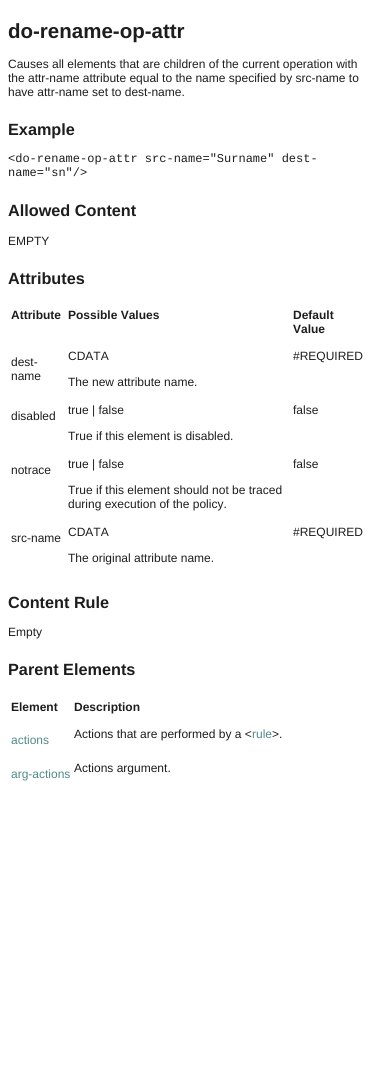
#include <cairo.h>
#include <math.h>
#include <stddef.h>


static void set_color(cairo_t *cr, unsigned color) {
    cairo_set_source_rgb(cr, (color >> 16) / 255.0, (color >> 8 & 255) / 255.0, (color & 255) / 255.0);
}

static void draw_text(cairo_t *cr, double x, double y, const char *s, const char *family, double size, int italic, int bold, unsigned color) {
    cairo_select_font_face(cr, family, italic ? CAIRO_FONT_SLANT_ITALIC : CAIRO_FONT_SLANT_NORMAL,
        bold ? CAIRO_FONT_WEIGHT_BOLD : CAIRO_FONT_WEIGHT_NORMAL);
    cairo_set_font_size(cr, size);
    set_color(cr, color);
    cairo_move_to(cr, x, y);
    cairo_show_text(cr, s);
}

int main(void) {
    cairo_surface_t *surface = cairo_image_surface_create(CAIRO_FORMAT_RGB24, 377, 1067);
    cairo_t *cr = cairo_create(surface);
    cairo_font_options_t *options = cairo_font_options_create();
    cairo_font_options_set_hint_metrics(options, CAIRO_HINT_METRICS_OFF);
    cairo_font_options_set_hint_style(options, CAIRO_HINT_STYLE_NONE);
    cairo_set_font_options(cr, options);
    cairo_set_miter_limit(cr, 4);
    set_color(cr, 0xFFFFFF);
    cairo_paint(cr);
    draw_text(cr, 8, 38, "do-rename-op-attr", "Liberation Sans", 20.5, 0, 1, 0x1D1D1D);
    draw_text(cr, 8, 68, "Causes all elements that are children of the current operation with", "Liberation Sans", 12, 0, 0, 0x1D1D1D);
    draw_text(cr, 8, 82, "the attr-name attribute equal to the name specified by src-name to", "Liberation Sans", 12, 0, 0, 0x1D1D1D);
    draw_text(cr, 8, 96, "have attr-name set to dest-name.", "Liberation Sans", 12, 0, 0, 0x1D1D1D);
    draw_text(cr, 8, 135, "Example", "Liberation Sans", 16.25, 0, 1, 0x1D1D1D);
    draw_text(cr, 8, 162, "<do-rename-op-attr src-name=\"Surname\" dest-", "Liberation Mono", 12, 0, 0, 0x1D1D1D);
    draw_text(cr, 8, 176, "name=\"sn\"/>", "Liberation Mono", 12, 0, 0, 0x1D1D1D);
    draw_text(cr, 8, 216, "Allowed Content", "Liberation Sans", 16.25, 0, 1, 0x1D1D1D);
    draw_text(cr, 8, 245, "EMPTY", "Liberation Sans", 12, 0, 0, 0x1D1D1D);
    draw_text(cr, 8, 284, "Attributes", "Liberation Sans", 16.25, 0, 1, 0x1D1D1D);
    draw_text(cr, 11, 319, "Attribute", "Liberation Sans", 12, 0, 1, 0x1D1D1D);
    draw_text(cr, 68, 319, "Possible Values", "Liberation Sans", 12, 0, 1, 0x1D1D1D);
    draw_text(cr, 293, 319, "Default", "Liberation Sans", 12, 0, 1, 0x1D1D1D);
    draw_text(cr, 293, 333, "Value", "Liberation Sans", 12, 0, 1, 0x1D1D1D);
    draw_text(cr, 11, 366, "dest-", "Liberation Sans", 12, 0, 0, 0x1D1D1D);
    draw_text(cr, 11, 380, "name", "Liberation Sans", 12, 0, 0, 0x1D1D1D);
    draw_text(cr, 68, 360, "CDATA", "Liberation Sans", 12, 0, 0, 0x1D1D1D);
    draw_text(cr, 68, 386, "The new attribute name.", "Liberation Sans", 12, 0, 0, 0x1D1D1D);
    draw_text(cr, 293, 360, "#REQUIRED", "Liberation Sans", 12, 0, 0, 0x1D1D1D);
    draw_text(cr, 68, 414, "true | false", "Liberation Sans", 12, 0, 0, 0x1D1D1D);
    draw_text(cr, 68, 440, "True if this element is disabled.", "Liberation Sans", 12, 0, 0, 0x1D1D1D);
    draw_text(cr, 293, 414, "false", "Liberation Sans", 12, 0, 0, 0x1D1D1D);
    draw_text(cr, 11, 420, "disabled", "Liberation Sans", 12, 0, 0, 0x1D1D1D);
    draw_text(cr, 68, 468, "true | false", "Liberation Sans", 12, 0, 0, 0x1D1D1D);
    draw_text(cr, 68, 494, "True if this element should not be traced", "Liberation Sans", 12, 0, 0, 0x1D1D1D);
    draw_text(cr, 68, 508, "during execution of the policy.", "Liberation Sans", 12, 0, 0, 0x1D1D1D);
    draw_text(cr, 293, 468, "false", "Liberation Sans", 12, 0, 0, 0x1D1D1D);
    draw_text(cr, 11, 474, "notrace", "Liberation Sans", 12, 0, 0, 0x1D1D1D);
    draw_text(cr, 11, 542, "src-name", "Liberation Sans", 12, 0, 0, 0x1D1D1D);
    draw_text(cr, 68, 536, "CDATA", "Liberation Sans", 12, 0, 0, 0x1D1D1D);
    draw_text(cr, 68, 562, "The original attribute name.", "Liberation Sans", 12, 0, 0, 0x1D1D1D);
    draw_text(cr, 293, 536, "#REQUIRED", "Liberation Sans", 12, 0, 0, 0x1D1D1D);
    draw_text(cr, 8, 608, "Content Rule", "Liberation Sans", 16.25, 0, 1, 0x1D1D1D);
    draw_text(cr, 8, 636, "Empty", "Liberation Sans", 12, 0, 0, 0x1D1D1D);
    draw_text(cr, 8, 675, "Parent Elements", "Liberation Sans", 16.25, 0, 1, 0x1D1D1D);
    draw_text(cr, 11, 711, "Element", "Liberation Sans", 12, 0, 1, 0x1D1D1D);
    draw_text(cr, 74, 711, "Description", "Liberation Sans", 12, 0, 1, 0x1D1D1D);
    draw_text(cr, 11, 744, "actions", "Liberation Sans", 12, 0, 0, 0x518988);
    draw_text(cr, 74, 738, "Actions that are performed by a <", "Liberation Sans", 12, 0, 0, 0x1D1D1D);
    draw_text(cr, 252, 738, "rule", "Liberation Sans", 12, 0, 0, 0x518988);
    draw_text(cr, 272, 738, ">.", "Liberation Sans", 12, 0, 0, 0x1D1D1D);
    draw_text(cr, 11, 778, "arg-actions", "Liberation Sans", 12, 0, 0, 0x518988);
    draw_text(cr, 74, 772, "Actions argument.", "Liberation Sans", 12, 0, 0, 0x1D1D1D);
    cairo_surface_write_to_png(surface, "output.png");
    cairo_font_options_destroy(options);
    cairo_destroy(cr);
    cairo_surface_destroy(surface);
    return 0;
}
